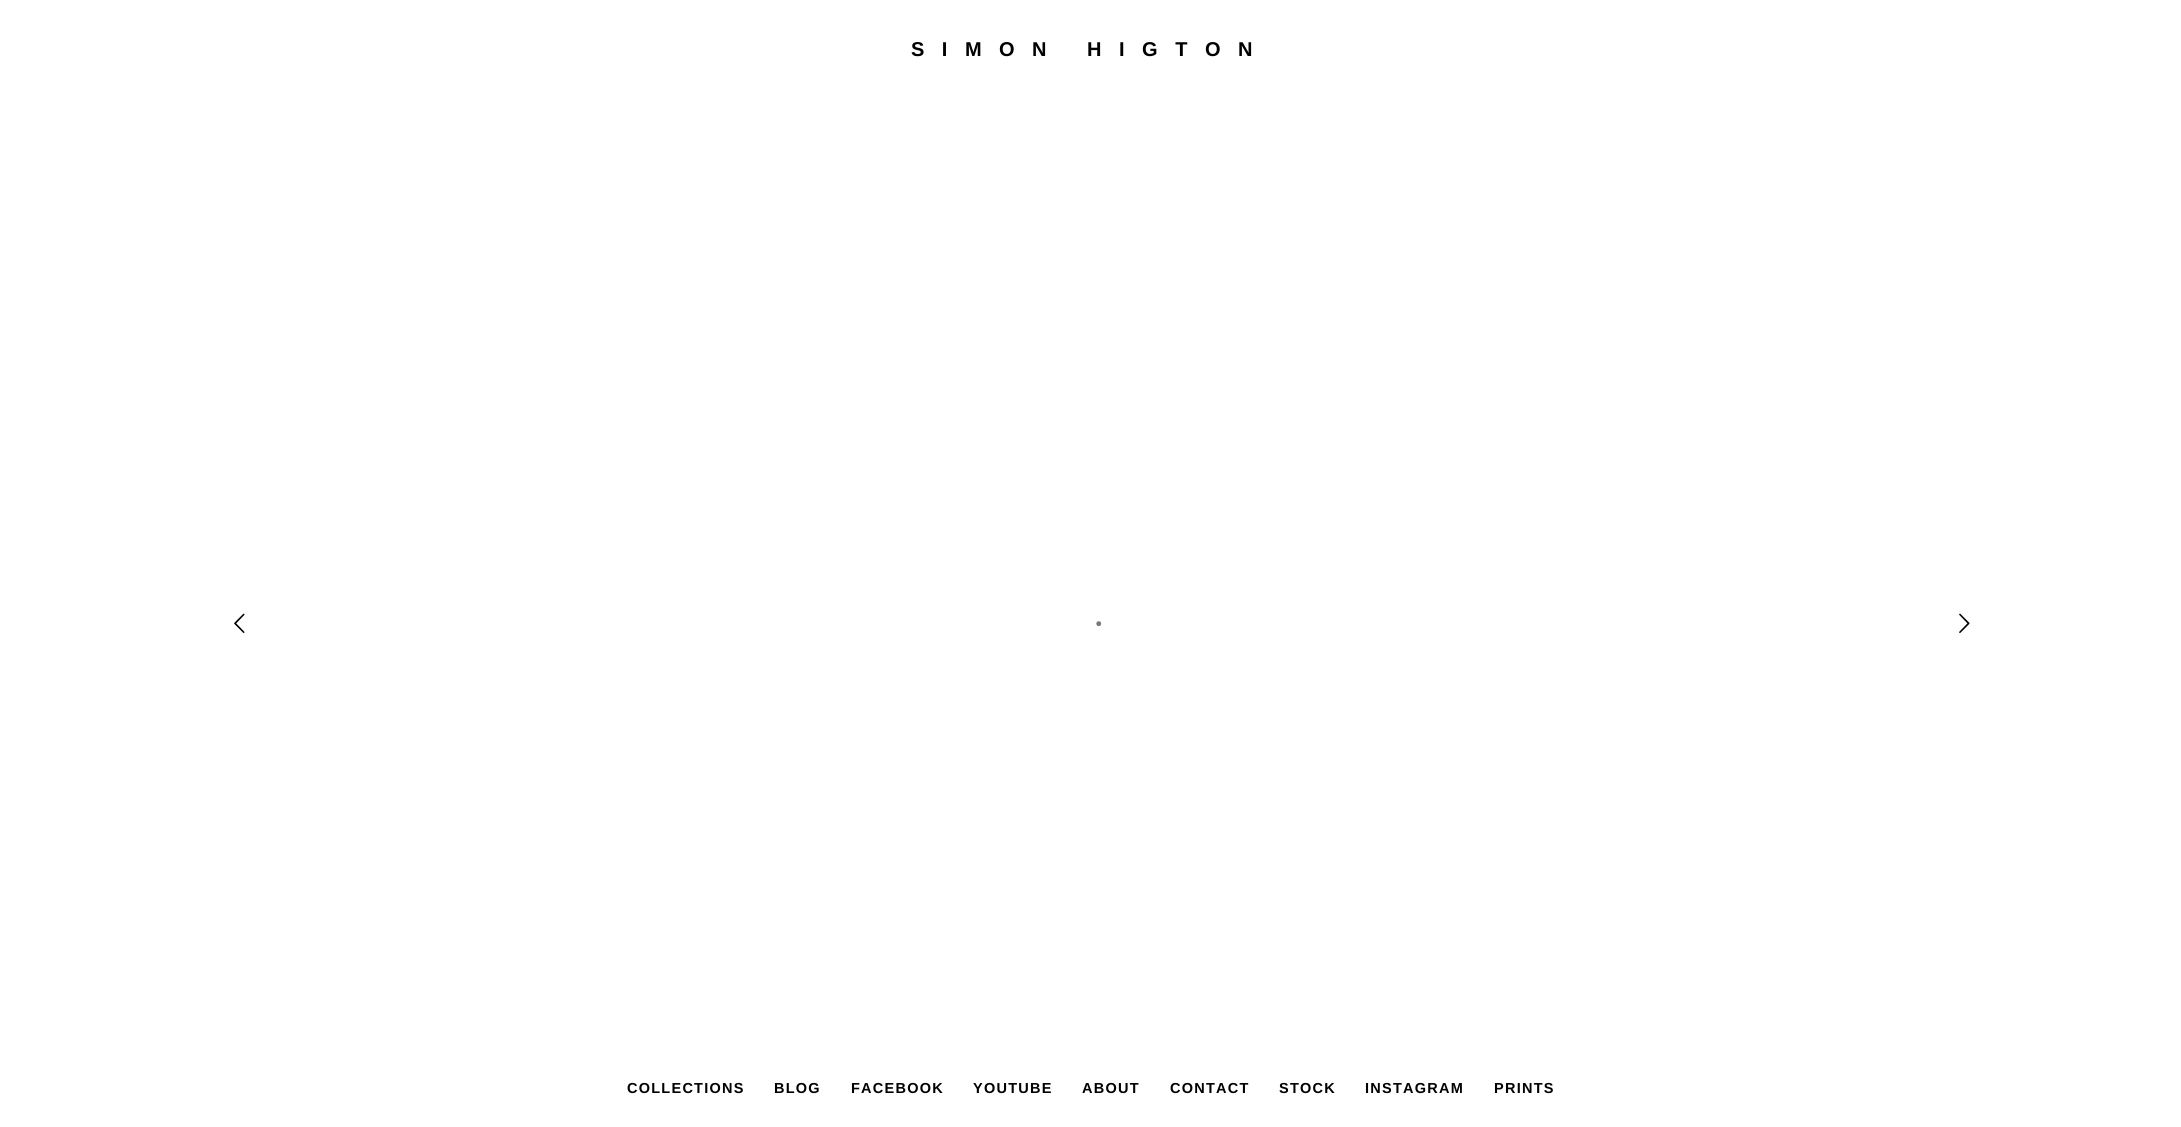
#include <cairo.h>
#include <math.h>
#include <stddef.h>


static void set_color(cairo_t *cr, unsigned color) {
    cairo_set_source_rgb(cr, (color >> 16) / 255.0, (color >> 8 & 255) / 255.0, (color & 255) / 255.0);
}

static void draw_spaced(cairo_t *cr, double x, double y, const char *s, double letter, double word) {
    cairo_move_to(cr, x, y);
    while (*s) {
        char ch[5] = {0};
        int n = 0;
        do ch[n++] = *s++; while ((*s & 0xC0) == 0x80);
        cairo_show_text(cr, ch);
        cairo_rel_move_to(cr, letter + word * (*ch == ' '), 0);
    }
}

static void draw_image(cairo_t *cr, const char *path, double x, double y, double w, double h) {
    cairo_surface_t *image = cairo_image_surface_create_from_png(path);
    cairo_save(cr);
    cairo_set_source_surface(cr, image, x, y);
    cairo_rectangle(cr, x, y, w, h);
    cairo_fill(cr);
    cairo_restore(cr);
    cairo_surface_destroy(image);
}

int main(void) {
    cairo_surface_t *surface = cairo_image_surface_create(CAIRO_FORMAT_RGB24, 2181, 1127);
    cairo_t *cr = cairo_create(surface);
    cairo_font_options_t *options = cairo_font_options_create();
    cairo_font_options_set_hint_metrics(options, CAIRO_HINT_METRICS_OFF);
    cairo_font_options_set_hint_style(options, CAIRO_HINT_STYLE_NONE);
    cairo_set_font_options(cr, options);
    cairo_set_miter_limit(cr, 4);
    set_color(cr, 0xFFFFFF);
    cairo_paint(cr);
    cairo_select_font_face(cr, "Liberation Sans", CAIRO_FONT_SLANT_NORMAL, CAIRO_FONT_WEIGHT_BOLD);
    cairo_set_font_size(cr, 20);
    set_color(cr, 0x000000);
    draw_spaced(cr, 911, 56, "SIMON HIGTON", 17.5, 0);
    draw_image(cr, "assets/img1.png", 234, 613, 11, 20);
    draw_image(cr, "assets/img2.png", 1091, 621, 11, 6);
    draw_image(cr, "assets/img3.png", 1959, 613, 11, 20);
    cairo_set_font_size(cr, 14.5);
    draw_spaced(cr, 627, 1093, "COLLECTIONS", 1.25, 0);
    draw_spaced(cr, 774, 1093, "BLOG", 1.25, 0);
    draw_spaced(cr, 851, 1093, "FACEBOOK", 1.25, 0);
    draw_spaced(cr, 973, 1093, "YOUTUBE", 1.25, 0);
    draw_spaced(cr, 1082, 1093, "ABOUT", 1.25, 0);
    draw_spaced(cr, 1170, 1093, "CONTACT", 1.25, 0);
    draw_spaced(cr, 1279, 1093, "STOCK", 1.25, 0);
    draw_spaced(cr, 1365, 1093, "INSTAGRAM", 1.25, 0);
    draw_spaced(cr, 1494, 1093, "PRINTS", 1.25, 0);
    cairo_surface_write_to_png(surface, "output.png");
    cairo_font_options_destroy(options);
    cairo_destroy(cr);
    cairo_surface_destroy(surface);
    return 0;
}
